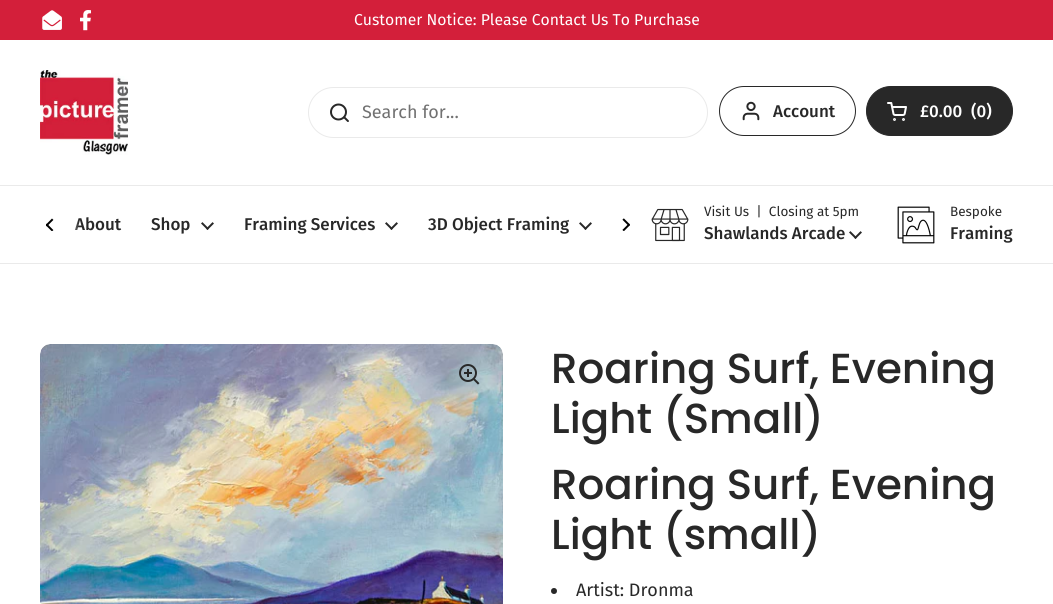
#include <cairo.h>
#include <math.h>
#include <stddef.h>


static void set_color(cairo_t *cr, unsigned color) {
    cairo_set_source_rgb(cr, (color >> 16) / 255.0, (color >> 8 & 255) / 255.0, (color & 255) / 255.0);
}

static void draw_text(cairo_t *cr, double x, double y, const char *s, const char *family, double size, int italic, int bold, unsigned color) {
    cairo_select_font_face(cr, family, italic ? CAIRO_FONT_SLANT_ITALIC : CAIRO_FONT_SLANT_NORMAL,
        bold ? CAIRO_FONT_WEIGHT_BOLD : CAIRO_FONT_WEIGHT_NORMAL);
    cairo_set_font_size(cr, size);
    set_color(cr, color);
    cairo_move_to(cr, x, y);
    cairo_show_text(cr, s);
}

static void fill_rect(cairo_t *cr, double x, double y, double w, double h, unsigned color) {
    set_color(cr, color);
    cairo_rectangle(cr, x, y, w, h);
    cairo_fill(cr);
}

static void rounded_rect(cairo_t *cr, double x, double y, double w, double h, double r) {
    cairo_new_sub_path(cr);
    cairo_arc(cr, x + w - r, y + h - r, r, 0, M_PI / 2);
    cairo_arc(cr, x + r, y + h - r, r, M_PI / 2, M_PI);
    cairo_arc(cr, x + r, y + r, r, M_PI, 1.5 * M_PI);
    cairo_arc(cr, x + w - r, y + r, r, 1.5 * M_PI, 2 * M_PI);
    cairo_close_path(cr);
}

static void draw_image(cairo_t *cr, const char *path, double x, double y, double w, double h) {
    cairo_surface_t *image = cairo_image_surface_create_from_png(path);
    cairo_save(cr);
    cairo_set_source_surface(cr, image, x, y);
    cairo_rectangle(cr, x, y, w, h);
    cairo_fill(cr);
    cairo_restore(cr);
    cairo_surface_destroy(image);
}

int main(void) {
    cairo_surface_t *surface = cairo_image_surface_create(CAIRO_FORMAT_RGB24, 1053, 604);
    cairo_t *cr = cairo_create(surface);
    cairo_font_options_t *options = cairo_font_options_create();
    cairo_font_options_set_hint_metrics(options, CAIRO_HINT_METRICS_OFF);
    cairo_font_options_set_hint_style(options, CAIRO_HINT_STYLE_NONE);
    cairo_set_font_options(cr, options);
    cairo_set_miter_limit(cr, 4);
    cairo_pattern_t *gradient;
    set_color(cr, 0xFFFFFF);
    cairo_paint(cr);
    fill_rect(cr, 0, 0, 1053, 40, 0xD31F3A);
    draw_image(cr, "assets/img1.png", 42, 10, 20, 20);
    draw_image(cr, "assets/img2.png", 80, 10, 11, 21);
    draw_text(cr, 354, 25, "Customer Notice: Please Contact Us To Purchase", "Fira Sans", 15.75, 0, 0, 0xFFFFFF);
    fill_rect(cr, 0, 185, 1053, 1, 0xEAEAEA);
    draw_image(cr, "assets/img3.png", 40, 70, 88, 85);
    rounded_rect(cr, 308.5, 87.5, 399, 50, 25);
    cairo_set_line_width(cr, 1);
    cairo_stroke(cr);
    draw_image(cr, "assets/img4.png", 330, 103, 19, 19);
    draw_text(cr, 362, 118, "Search for...", "Fira Sans", 18, 0, 0, 0x717171);
    rounded_rect(cr, 719.5, 86.5, 136, 49, 24.5);
    set_color(cr, 0x282828);
    cairo_stroke(cr);
    draw_image(cr, "assets/img5.png", 742, 101, 18, 20);
    draw_text(cr, 773, 117, "Account", "Fira Sans Medium", 17, 0, 0, 0x282828);
    rounded_rect(cr, 866.5, 86.5, 146, 49, 24.5);
    cairo_fill_preserve(cr);
    cairo_stroke(cr);
    draw_image(cr, "assets/img6.png", 887, 102, 20, 19);
    draw_text(cr, 920, 117, "£0.00", "Fira Sans Medium", 17, 0, 0, 0xFFFFFF);
    draw_text(cr, 971, 117, "(0)", "Fira Sans Medium", 17, 0, 0, 0xFFFFFF);
    fill_rect(cr, 0, 263, 1053, 1, 0xEAEAEA);
    draw_image(cr, "assets/img7.png", 46, 218, 8, 13);
    draw_text(cr, 75, 230, "About", "Fira Sans Medium", 17, 0, 0, 0x282828);
    gradient = cairo_pattern_create_linear(54, 225, 79, 225);
    cairo_pattern_add_color_stop_rgba(gradient, 0.5, 1, 1, 1, 1);
    cairo_pattern_add_color_stop_rgba(gradient, 1, 1, 1, 1, 0);
    cairo_set_source(cr, gradient);
    cairo_pattern_destroy(gradient);
    cairo_rectangle(cr, 75, 218, 4, 12);
    cairo_fill(cr);
    draw_text(cr, 151, 230, "Shop", "Fira Sans Medium", 17, 0, 0, 0x282828);
    draw_image(cr, "assets/img8.png", 201, 222, 13, 8);
    draw_text(cr, 244, 230, "Framing Services", "Fira Sans Medium", 17, 0, 0, 0x282828);
    draw_image(cr, "assets/img8.png", 385, 222, 13, 8);
    draw_text(cr, 428, 230, "3D Object Framing", "Fira Sans Medium", 17, 0, 0, 0x282828);
    draw_image(cr, "assets/img8.png", 579, 222, 13, 8);
    draw_image(cr, "assets/img9.png", 622, 218, 8, 13);
    draw_image(cr, "assets/img10.png", 651, 208, 38, 34);
    draw_text(cr, 704, 216, "Visit Us  |  Closing at 5pm", "Fira Sans", 13.5, 0, 0, 0x282828);
    draw_text(cr, 704, 239, "Shawlands Arcade", "Fira Sans Medium", 17, 0, 0, 0x282828);
    draw_image(cr, "assets/img8.png", 849, 231, 13, 8);
    draw_image(cr, "assets/img11.png", 897, 206, 38, 38);
    draw_text(cr, 950, 216, "Bespoke", "Fira Sans", 13.5, 0, 0, 0x282828);
    draw_text(cr, 950, 239, "Framing", "Fira Sans Medium", 17, 0, 0, 0x282828);
    draw_image(cr, "assets/img12.png", 40, 344, 463, 260);
    draw_image(cr, "assets/img13.png", 459, 364, 21, 21);
    draw_text(cr, 551, 383, "Roaring Surf, Evening", "Poppins Medium", 42, 0, 0, 0x282828);
    draw_text(cr, 551, 433, "Light (Small)", "Poppins Medium", 42, 0, 0, 0x282828);
    draw_text(cr, 551, 499, "Roaring Surf, Evening", "Poppins Medium", 42, 0, 0, 0x282828);
    draw_text(cr, 551, 549, "Light (small)", "Poppins Medium", 42, 0, 0, 0x282828);
    cairo_new_path(cr);
    cairo_arc(cr, 554, 591, 3, 0, 2 * M_PI);
    cairo_fill(cr);
    draw_text(cr, 576, 596, "Artist: Dronma", "Fira Sans", 18, 0, 0, 0x282828);
    cairo_surface_write_to_png(surface, "output.png");
    cairo_font_options_destroy(options);
    cairo_destroy(cr);
    cairo_surface_destroy(surface);
    return 0;
}
